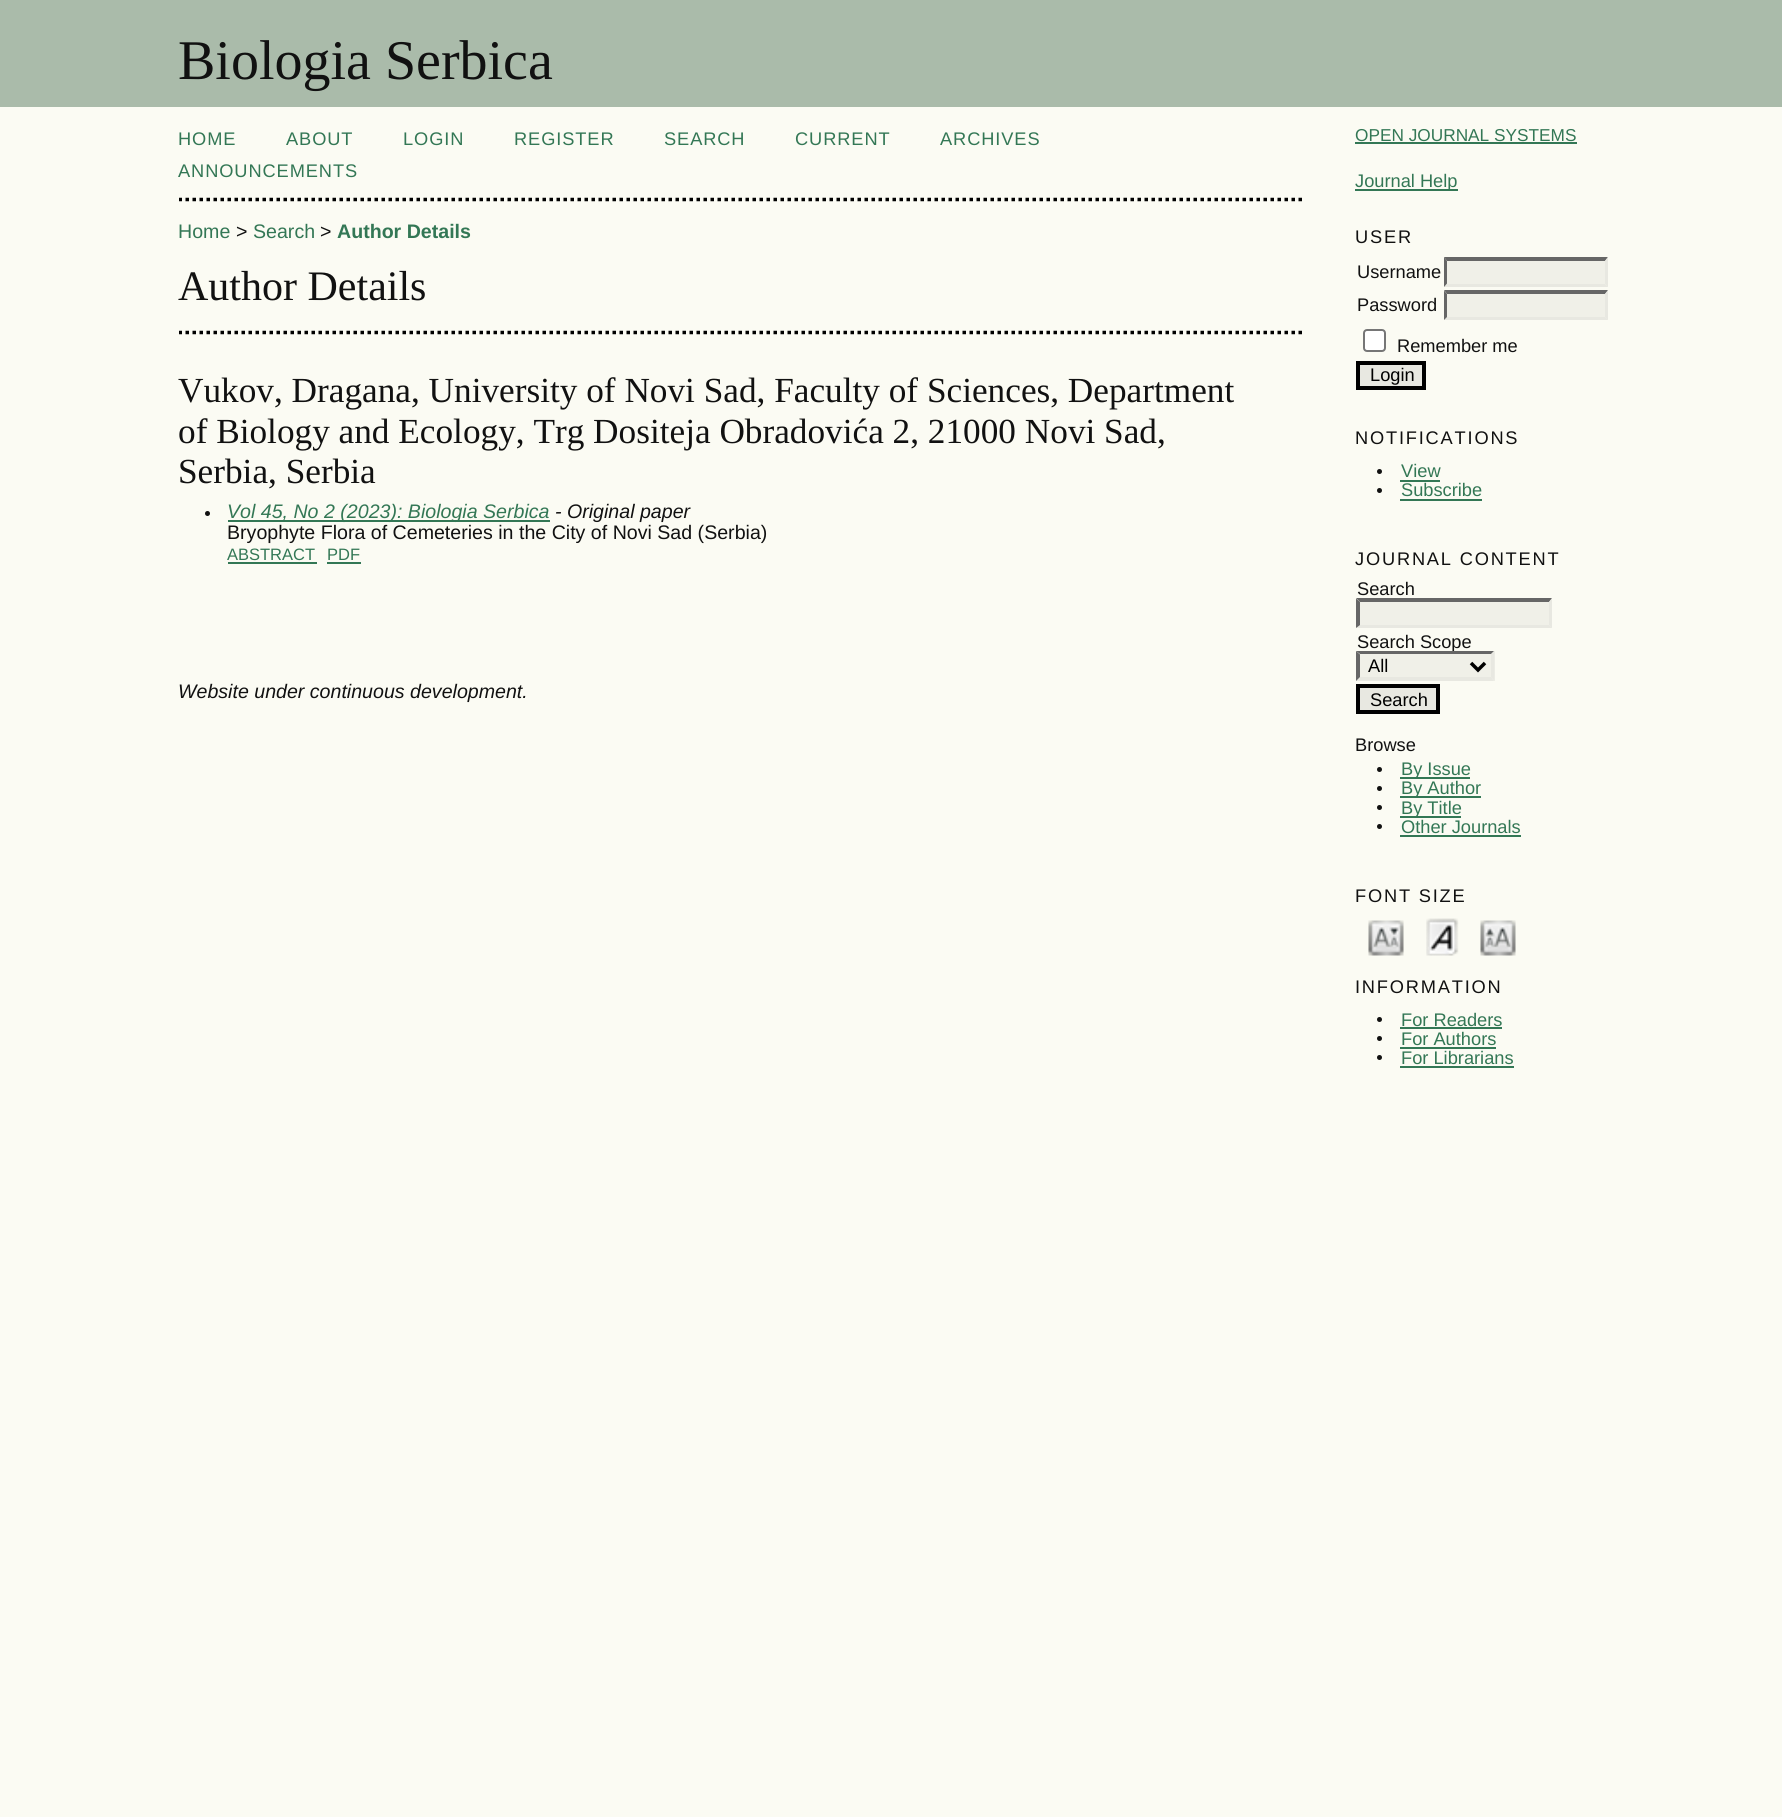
#include <cairo.h>
#include <math.h>
#include <stddef.h>


static void set_color(cairo_t *cr, unsigned color) {
    cairo_set_source_rgb(cr, (color >> 16) / 255.0, (color >> 8 & 255) / 255.0, (color & 255) / 255.0);
}

static void draw_text(cairo_t *cr, double x, double y, const char *s, const char *family, double size, int italic, int bold, unsigned color) {
    cairo_select_font_face(cr, family, italic ? CAIRO_FONT_SLANT_ITALIC : CAIRO_FONT_SLANT_NORMAL,
        bold ? CAIRO_FONT_WEIGHT_BOLD : CAIRO_FONT_WEIGHT_NORMAL);
    cairo_set_font_size(cr, size);
    set_color(cr, color);
    cairo_move_to(cr, x, y);
    cairo_show_text(cr, s);
}

static void draw_spaced(cairo_t *cr, double x, double y, const char *s, double letter, double word) {
    cairo_move_to(cr, x, y);
    while (*s) {
        char ch[5] = {0};
        int n = 0;
        do ch[n++] = *s++; while ((*s & 0xC0) == 0x80);
        cairo_show_text(cr, ch);
        cairo_rel_move_to(cr, letter + word * (*ch == ' '), 0);
    }
}

static void fill_rect(cairo_t *cr, double x, double y, double w, double h, unsigned color) {
    set_color(cr, color);
    cairo_rectangle(cr, x, y, w, h);
    cairo_fill(cr);
}

static void rounded_rect(cairo_t *cr, double x, double y, double w, double h, double r) {
    cairo_new_sub_path(cr);
    cairo_arc(cr, x + w - r, y + h - r, r, 0, M_PI / 2);
    cairo_arc(cr, x + r, y + h - r, r, M_PI / 2, M_PI);
    cairo_arc(cr, x + r, y + r, r, M_PI, 1.5 * M_PI);
    cairo_arc(cr, x + w - r, y + r, r, 1.5 * M_PI, 2 * M_PI);
    cairo_close_path(cr);
}

static void draw_image(cairo_t *cr, const char *path, double x, double y, double w, double h) {
    cairo_surface_t *image = cairo_image_surface_create_from_png(path);
    cairo_save(cr);
    cairo_set_source_surface(cr, image, x, y);
    cairo_rectangle(cr, x, y, w, h);
    cairo_fill(cr);
    cairo_restore(cr);
    cairo_surface_destroy(image);
}

int main(void) {
    cairo_surface_t *surface = cairo_image_surface_create(CAIRO_FORMAT_RGB24, 1782, 1817);
    cairo_t *cr = cairo_create(surface);
    cairo_font_options_t *options = cairo_font_options_create();
    cairo_font_options_set_hint_metrics(options, CAIRO_HINT_METRICS_OFF);
    cairo_font_options_set_hint_style(options, CAIRO_HINT_STYLE_NONE);
    cairo_set_font_options(cr, options);
    cairo_set_miter_limit(cr, 4);
    set_color(cr, 0xFBFBF3);
    cairo_paint(cr);
    fill_rect(cr, 0, 0, 1782, 107, 0xAABBAA);
    draw_text(cr, 178, 79, "Biologia Serbica", "Liberation Serif", 56, 0, 0, 0x111111);
    cairo_save(cr);
    cairo_rectangle(cr, 179, 107, 1123, 670);
    cairo_clip(cr);
    cairo_new_path(cr);
    cairo_move_to(cr, 178.5, 199.5);
    cairo_line_to(cr, 1302, 199.5);
    set_color(cr, 0x000000);
    cairo_set_line_width(cr, 3.5);
    cairo_set_dash(cr, (double[]){3.5, 3.5}, 2, 0);
    cairo_stroke(cr);
    cairo_restore(cr);
    cairo_select_font_face(cr, "Liberation Sans", CAIRO_FONT_SLANT_NORMAL, CAIRO_FONT_WEIGHT_NORMAL);
    cairo_set_font_size(cr, 18.25);
    set_color(cr, 0x337755);
    draw_spaced(cr, 178, 145, "HOME", 0.9, 0);
    draw_spaced(cr, 286, 145, "ABOUT", 0.9, 0);
    draw_spaced(cr, 403, 145, "LOGIN", 0.9, 0);
    draw_spaced(cr, 514, 145, "REGISTER", 0.9, 0);
    draw_spaced(cr, 664, 145, "SEARCH", 0.9, 0);
    draw_spaced(cr, 795, 145, "CURRENT", 0.9, 0);
    draw_spaced(cr, 940, 145, "ARCHIVES", 0.9, 0);
    draw_spaced(cr, 178, 177, "ANNOUNCEMENTS", 0.9, 0);
    draw_text(cr, 178, 238, "Home", "Liberation Sans", 19.6, 0, 0, 0x337755);
    draw_text(cr, 236, 238, ">", "Liberation Sans", 19.6, 0, 0, 0x111111);
    draw_text(cr, 253, 238, "Search", "Liberation Sans", 19.6, 0, 0, 0x337755);
    draw_text(cr, 320, 238, ">", "Liberation Sans", 19.6, 0, 0, 0x111111);
    draw_text(cr, 337, 238, "Author Details", "Liberation Sans", 19.6, 0, 1, 0x337755);
    draw_text(cr, 178, 300, "Author Details", "Liberation Serif", 42, 0, 0, 0x111111);
    cairo_save(cr);
    cairo_rectangle(cr, 179, 107, 1123, 670);
    cairo_clip(cr);
    cairo_new_path(cr);
    cairo_move_to(cr, 178.5, 332.5);
    cairo_line_to(cr, 1302, 332.5);
    set_color(cr, 0x000000);
    cairo_set_line_width(cr, 3.5);
    cairo_set_dash(cr, (double[]){3.5, 3.5}, 2, 0);
    cairo_stroke(cr);
    cairo_restore(cr);
    draw_text(cr, 178, 402, "Vukov, Dragana, University of Novi Sad, Faculty of Sciences, Department", "Liberation Serif", 35.25, 0, 0, 0x111111);
    draw_text(cr, 178, 443, "of Biology and Ecology, Trg Dositeja Obradovića 2, 21000 Novi Sad,", "Liberation Serif", 35.25, 0, 0, 0x111111);
    draw_text(cr, 178, 483, "Serbia, Serbia", "Liberation Serif", 35.25, 0, 0, 0x111111);
    cairo_new_path(cr);
    cairo_arc(cr, 207.5, 513.5, 2.5, 0, 2 * M_PI);
    cairo_fill(cr);
    fill_rect(cr, 228, 520, 322, 2, 0x337755);
    draw_text(cr, 227, 518, "Vol 45, No 2 (2023): Biologia Serbica", "Liberation Sans", 19.6, 1, 0, 0x337755);
    draw_text(cr, 555, 518, "- Original paper", "Liberation Sans", 19.6, 1, 0, 0x111111);
    draw_text(cr, 227, 539, "Bryophyte Flora of Cemeteries in the City of Novi Sad (Serbia)", "Liberation Sans", 19.6, 0, 0, 0x111111);
    draw_text(cr, 227, 560, "ABSTRACT", "Liberation Sans", 16.5, 0, 0, 0x337755);
    fill_rect(cr, 228, 562, 89, 2, 0x337755);
    draw_text(cr, 327, 560, "PDF", "Liberation Sans", 16.5, 0, 0, 0x337755);
    fill_rect(cr, 327, 562, 34, 2, 0x337755);
    draw_text(cr, 178, 698, "Website under continuous development.", "Liberation Sans", 19.6, 1, 0, 0x111111);
    draw_text(cr, 1355, 141, "OPEN JOURNAL SYSTEMS", "Liberation Sans", 17.25, 0, 0, 0x337755);
    fill_rect(cr, 1355, 142, 222, 2, 0x337755);
    fill_rect(cr, 1355, 189, 103, 2, 0x337755);
    draw_text(cr, 1355, 187, "Journal Help", "Liberation Sans", 18.25, 0, 0, 0x337755);
    set_color(cr, 0x111111);
    draw_spaced(cr, 1355, 243, "USER", 1.8, 0);
    draw_text(cr, 1357, 278, "Username", "Liberation Sans", 18.25, 0, 0, 0x111111);
    fill_rect(cr, 1444, 257, 164, 30, 0xF0F0E8);
    set_color(cr, 0x666666);
    cairo_new_path(cr);
    cairo_move_to(cr, 1444, 257);
    cairo_line_to(cr, 1608, 257);
    cairo_line_to(cr, 1605, 261);
    cairo_line_to(cr, 1447, 261);
    cairo_close_path(cr);
    cairo_fill(cr);
    set_color(cr, 0xE8E8E1);
    cairo_new_path(cr);
    cairo_move_to(cr, 1608, 257);
    cairo_line_to(cr, 1608, 287);
    cairo_line_to(cr, 1605, 283.5);
    cairo_line_to(cr, 1605, 261);
    cairo_close_path(cr);
    cairo_fill(cr);
    cairo_new_path(cr);
    cairo_move_to(cr, 1608, 287);
    cairo_line_to(cr, 1444, 287);
    cairo_line_to(cr, 1447, 284);
    cairo_line_to(cr, 1605, 284);
    cairo_close_path(cr);
    cairo_fill(cr);
    set_color(cr, 0x666666);
    cairo_new_path(cr);
    cairo_move_to(cr, 1444, 287);
    cairo_line_to(cr, 1444, 257);
    cairo_line_to(cr, 1447, 261);
    cairo_line_to(cr, 1447, 283.5);
    cairo_close_path(cr);
    cairo_fill(cr);
    draw_text(cr, 1357, 311, "Password", "Liberation Sans", 18.25, 0, 0, 0x111111);
    fill_rect(cr, 1444, 291, 164, 29, 0xF0F0E8);
    set_color(cr, 0x666666);
    cairo_new_path(cr);
    cairo_move_to(cr, 1444, 290);
    cairo_line_to(cr, 1608, 290);
    cairo_line_to(cr, 1605, 294);
    cairo_line_to(cr, 1447, 294);
    cairo_close_path(cr);
    cairo_fill(cr);
    set_color(cr, 0xE8E8E1);
    cairo_new_path(cr);
    cairo_move_to(cr, 1608, 290.5);
    cairo_line_to(cr, 1608, 320);
    cairo_line_to(cr, 1605, 317);
    cairo_line_to(cr, 1605, 294);
    cairo_close_path(cr);
    cairo_fill(cr);
    cairo_new_path(cr);
    cairo_move_to(cr, 1608, 320);
    cairo_line_to(cr, 1444, 320);
    cairo_line_to(cr, 1447, 317);
    cairo_line_to(cr, 1605, 317);
    cairo_close_path(cr);
    cairo_fill(cr);
    set_color(cr, 0x666666);
    cairo_new_path(cr);
    cairo_move_to(cr, 1444, 320);
    cairo_line_to(cr, 1444, 290.5);
    cairo_line_to(cr, 1447, 294);
    cairo_line_to(cr, 1447, 317);
    cairo_close_path(cr);
    cairo_fill(cr);
    set_color(cr, 0xFFFFFF);
    rounded_rect(cr, 1364, 330, 21, 21, 3);
    cairo_fill_preserve(cr);
    set_color(cr, 0x767676);
    cairo_stroke(cr);
    draw_text(cr, 1397, 352, "Remember me", "Liberation Sans", 18.25, 0, 0, 0x111111);
    set_color(cr, 0xE8E8E1);
    cairo_rectangle(cr, 1358, 363, 66, 25);
    cairo_fill_preserve(cr);
    set_color(cr, 0x000000);
    cairo_set_line_width(cr, 4);
    cairo_stroke(cr);
    draw_text(cr, 1370, 381, "Login", "Liberation Sans", 18.25, 0, 0, 0x000000);
    set_color(cr, 0x111111);
    draw_spaced(cr, 1355, 444, "NOTIFICATIONS", 1.8, 0);
    cairo_new_path(cr);
    cairo_arc(cr, 1379.5, 471.5, 2.5, 0, 2 * M_PI);
    cairo_fill(cr);
    draw_text(cr, 1401, 477, "View", "Liberation Sans", 18.25, 0, 0, 0x337755);
    fill_rect(cr, 1400, 480, 40, 2, 0x337755);
    set_color(cr, 0x111111);
    cairo_new_path(cr);
    cairo_arc(cr, 1379.5, 490.5, 2.5, 0, 2 * M_PI);
    cairo_fill(cr);
    draw_text(cr, 1401, 496, "Subscribe", "Liberation Sans", 18.25, 0, 0, 0x337755);
    fill_rect(cr, 1400, 499, 82, 2, 0x337755);
    set_color(cr, 0x111111);
    draw_spaced(cr, 1355, 565, "JOURNAL CONTENT", 1.8, 0);
    draw_text(cr, 1357, 595, "Search", "Liberation Sans", 18.25, 0, 0, 0x111111);
    fill_rect(cr, 1356, 599, 196, 29, 0xF0F0E8);
    set_color(cr, 0x666666);
    cairo_new_path(cr);
    cairo_move_to(cr, 1356, 598);
    cairo_line_to(cr, 1552, 598);
    cairo_line_to(cr, 1549, 602);
    cairo_line_to(cr, 1360, 602);
    cairo_close_path(cr);
    cairo_fill(cr);
    set_color(cr, 0xE8E8E1);
    cairo_new_path(cr);
    cairo_move_to(cr, 1552, 598.5);
    cairo_line_to(cr, 1552, 628);
    cairo_line_to(cr, 1549, 625);
    cairo_line_to(cr, 1549, 602);
    cairo_close_path(cr);
    cairo_fill(cr);
    cairo_new_path(cr);
    cairo_move_to(cr, 1552, 628);
    cairo_line_to(cr, 1356, 628);
    cairo_line_to(cr, 1360, 625);
    cairo_line_to(cr, 1549, 625);
    cairo_close_path(cr);
    cairo_fill(cr);
    set_color(cr, 0x666666);
    cairo_new_path(cr);
    cairo_move_to(cr, 1356, 628);
    cairo_line_to(cr, 1356, 598.5);
    cairo_line_to(cr, 1360, 602);
    cairo_line_to(cr, 1360, 625);
    cairo_close_path(cr);
    cairo_fill(cr);
    draw_text(cr, 1357, 648, "Search Scope", "Liberation Sans", 18.25, 0, 0, 0x111111);
    fill_rect(cr, 1356, 651, 139, 30, 0xF0F0E8);
    set_color(cr, 0x666666);
    cairo_new_path(cr);
    cairo_move_to(cr, 1356, 651);
    cairo_line_to(cr, 1494, 651);
    cairo_line_to(cr, 1491, 654);
    cairo_line_to(cr, 1360, 654);
    cairo_close_path(cr);
    cairo_fill(cr);
    set_color(cr, 0xE8E8E1);
    cairo_new_path(cr);
    cairo_move_to(cr, 1494.5, 651);
    cairo_line_to(cr, 1494.5, 681);
    cairo_line_to(cr, 1491, 677);
    cairo_line_to(cr, 1491, 654.5);
    cairo_close_path(cr);
    cairo_fill(cr);
    cairo_new_path(cr);
    cairo_move_to(cr, 1494, 681);
    cairo_line_to(cr, 1356, 681);
    cairo_line_to(cr, 1360, 677);
    cairo_line_to(cr, 1491, 677);
    cairo_close_path(cr);
    cairo_fill(cr);
    set_color(cr, 0x666666);
    cairo_new_path(cr);
    cairo_move_to(cr, 1356, 681);
    cairo_line_to(cr, 1356, 651);
    cairo_line_to(cr, 1360, 654.5);
    cairo_line_to(cr, 1360, 677);
    cairo_close_path(cr);
    cairo_fill(cr);
    cairo_new_path(cr);
    cairo_move_to(cr, 1471, 663);
    cairo_line_to(cr, 1478, 670);
    cairo_line_to(cr, 1485, 663);
    set_color(cr, 0x000000);
    cairo_set_line_width(cr, 3.5);
    cairo_stroke(cr);
    draw_text(cr, 1368, 672, "All", "Liberation Sans", 18.25, 0, 0, 0x000000);
    set_color(cr, 0xE8E8E1);
    cairo_rectangle(cr, 1358, 686, 80, 26);
    cairo_fill_preserve(cr);
    set_color(cr, 0x000000);
    cairo_set_line_width(cr, 4);
    cairo_stroke(cr);
    draw_text(cr, 1370, 706, "Search", "Liberation Sans", 18.25, 0, 0, 0x000000);
    draw_text(cr, 1355, 751, "Browse", "Liberation Sans", 18.25, 0, 0, 0x111111);
    cairo_new_path(cr);
    cairo_arc(cr, 1379.5, 769.5, 2.5, 0, 2 * M_PI);
    cairo_fill(cr);
    fill_rect(cr, 1400, 777, 70, 2, 0x337755);
    draw_text(cr, 1401, 775, "By Issue", "Liberation Sans", 18.25, 0, 0, 0x337755);
    set_color(cr, 0x111111);
    cairo_new_path(cr);
    cairo_arc(cr, 1379.5, 788.5, 2.5, 0, 2 * M_PI);
    cairo_fill(cr);
    fill_rect(cr, 1400, 796, 81, 2, 0x337755);
    draw_text(cr, 1401, 794, "By Author", "Liberation Sans", 18.25, 0, 0, 0x337755);
    set_color(cr, 0x111111);
    cairo_new_path(cr);
    cairo_arc(cr, 1379.5, 807.5, 2.5, 0, 2 * M_PI);
    cairo_fill(cr);
    fill_rect(cr, 1400, 816, 61, 2, 0x337755);
    draw_text(cr, 1401, 814, "By Title", "Liberation Sans", 18.25, 0, 0, 0x337755);
    set_color(cr, 0x111111);
    cairo_new_path(cr);
    cairo_arc(cr, 1379.5, 826.5, 2.5, 0, 2 * M_PI);
    cairo_fill(cr);
    draw_text(cr, 1401, 833, "Other Journals", "Liberation Sans", 18.25, 0, 0, 0x337755);
    fill_rect(cr, 1400, 835, 121, 2, 0x337755);
    set_color(cr, 0x111111);
    draw_spaced(cr, 1355, 902, "FONT SIZE", 1.8, 0);
    draw_image(cr, "assets/img1.png", 1368, 920, 36, 36);
    draw_image(cr, "assets/img2.png", 1426, 918, 33, 38);
    draw_image(cr, "assets/img3.png", 1480, 920, 36, 36);
    draw_spaced(cr, 1355, 993, "INFORMATION", 1.8, 0);
    cairo_new_path(cr);
    cairo_arc(cr, 1379.5, 1019.5, 2.5, 0, 2 * M_PI);
    cairo_fill(cr);
    draw_text(cr, 1401, 1026, "For Readers", "Liberation Sans", 18.25, 0, 0, 0x337755);
    fill_rect(cr, 1400, 1027, 102, 2, 0x337755);
    set_color(cr, 0x111111);
    cairo_new_path(cr);
    cairo_arc(cr, 1379.5, 1038.5, 2.5, 0, 2 * M_PI);
    cairo_fill(cr);
    draw_text(cr, 1401, 1045, "For Authors", "Liberation Sans", 18.25, 0, 0, 0x337755);
    fill_rect(cr, 1400, 1047, 96, 2, 0x337755);
    set_color(cr, 0x111111);
    cairo_new_path(cr);
    cairo_arc(cr, 1379.5, 1057.5, 2.5, 0, 2 * M_PI);
    cairo_fill(cr);
    draw_text(cr, 1401, 1064, "For Librarians", "Liberation Sans", 18.25, 0, 0, 0x337755);
    fill_rect(cr, 1400, 1066, 114, 2, 0x337755);
    cairo_surface_write_to_png(surface, "output.png");
    cairo_font_options_destroy(options);
    cairo_destroy(cr);
    cairo_surface_destroy(surface);
    return 0;
}
